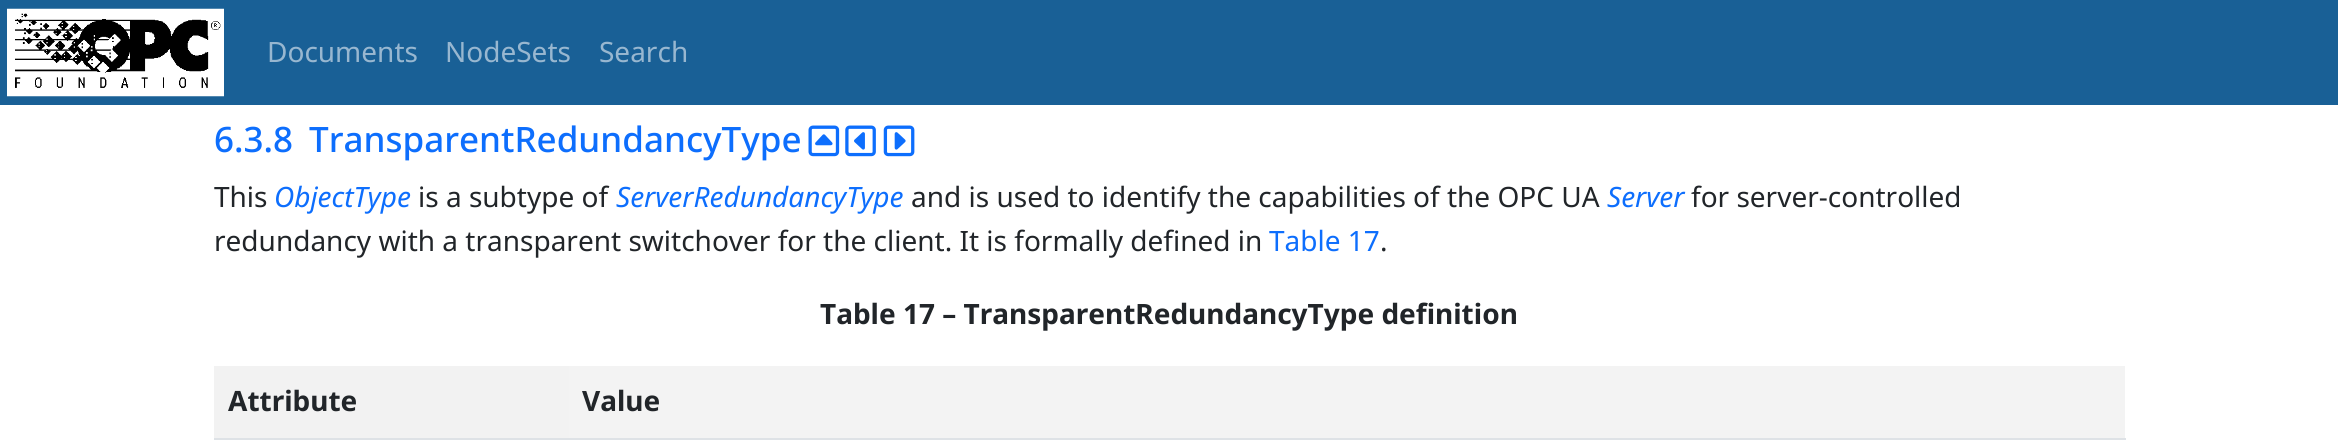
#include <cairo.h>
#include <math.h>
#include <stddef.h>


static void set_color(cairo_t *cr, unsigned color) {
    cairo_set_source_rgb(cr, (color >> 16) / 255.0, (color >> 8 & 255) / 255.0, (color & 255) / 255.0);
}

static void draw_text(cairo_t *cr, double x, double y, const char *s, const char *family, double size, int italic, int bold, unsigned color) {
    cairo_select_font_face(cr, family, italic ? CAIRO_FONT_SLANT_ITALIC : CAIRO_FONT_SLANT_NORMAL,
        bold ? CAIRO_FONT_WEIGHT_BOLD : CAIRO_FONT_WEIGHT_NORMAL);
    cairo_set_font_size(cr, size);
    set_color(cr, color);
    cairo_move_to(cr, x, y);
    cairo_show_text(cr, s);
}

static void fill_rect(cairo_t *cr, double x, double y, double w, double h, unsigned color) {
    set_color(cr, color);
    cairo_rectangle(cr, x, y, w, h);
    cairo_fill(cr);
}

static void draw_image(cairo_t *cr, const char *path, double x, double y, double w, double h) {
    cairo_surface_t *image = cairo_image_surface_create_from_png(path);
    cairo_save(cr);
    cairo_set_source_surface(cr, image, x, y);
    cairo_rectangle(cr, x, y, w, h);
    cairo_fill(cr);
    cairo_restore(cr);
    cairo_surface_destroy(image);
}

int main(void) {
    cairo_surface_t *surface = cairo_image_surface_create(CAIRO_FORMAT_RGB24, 2338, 441);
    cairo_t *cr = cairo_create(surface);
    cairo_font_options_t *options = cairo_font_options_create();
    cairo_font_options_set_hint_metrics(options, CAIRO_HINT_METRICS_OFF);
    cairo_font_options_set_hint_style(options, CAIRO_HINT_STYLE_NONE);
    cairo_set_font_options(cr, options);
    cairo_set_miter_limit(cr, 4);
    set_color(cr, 0xFFFFFF);
    cairo_paint(cr);
    fill_rect(cr, 0, 0, 2338, 105, 0x196096);
    draw_image(cr, "assets/img1.png", 7, 8, 217, 89);
    draw_text(cr, 267, 62, "Documents", "Noto Sans", 28, 0, 0, 0x98B7D0);
    draw_text(cr, 445, 62, "NodeSets", "Noto Sans", 28, 0, 0, 0x98B7D0);
    draw_text(cr, 599, 62, "Search", "Noto Sans", 28, 0, 0, 0x98B7D0);
    draw_text(cr, 214, 152, "6.3.8", "Noto Sans Medium", 35, 0, 0, 0x0D6EFD);
    draw_text(cr, 309, 152, "TransparentRedundancyType", "Noto Sans Medium", 35, 0, 0, 0x0D6EFD);
    draw_image(cr, "assets/img2.png", 808, 125, 32, 32);
    draw_image(cr, "assets/img3.png", 845, 125, 31, 32);
    draw_image(cr, "assets/img4.png", 883, 125, 32, 32);
    draw_text(cr, 214, 207, "This", "Noto Sans", 28, 0, 0, 0x212529);
    draw_text(cr, 274, 207, "ObjectType", "Noto Sans", 28, 1, 0, 0x0D6EFD);
    draw_text(cr, 418, 207, "is a subtype of", "Noto Sans", 28, 0, 0, 0x212529);
    draw_text(cr, 616, 207, "ServerRedundancyType", "Noto Sans", 28, 1, 0, 0x0D6EFD);
    draw_text(cr, 911, 207, "and is used to identify the capabilities of the OPC UA", "Noto Sans", 28, 0, 0, 0x212529);
    draw_text(cr, 1607, 207, "Server", "Noto Sans", 28, 1, 0, 0x0D6EFD);
    draw_text(cr, 1691, 207, "for server-controlled", "Noto Sans", 28, 0, 0, 0x212529);
    draw_text(cr, 214, 251, "redundancy with a transparent switchover for the client. It is formally defined in", "Noto Sans", 28, 0, 0, 0x212529);
    draw_text(cr, 1269, 251, "Table 17", "Noto Sans", 28, 0, 0, 0x0D6EFD);
    draw_text(cr, 1380, 251, ".", "Noto Sans", 28, 0, 0, 0x212529);
    draw_text(cr, 820, 324, "Table 17 – TransparentRedundancyType definition", "Noto Sans", 28, 0, 1, 0x212529);
    fill_rect(cr, 214, 366, 355, 72, 0xF2F2F2);
    draw_text(cr, 228, 411, "Attribute", "Noto Sans", 28, 0, 1, 0x212529);
    fill_rect(cr, 569, 366, 1556, 72, 0xF3F3F3);
    fill_rect(cr, 214, 438, 1912, 2, 0xDEE2E6);
    draw_text(cr, 582, 411, "Value", "Noto Sans", 28, 0, 1, 0x212529);
    cairo_surface_write_to_png(surface, "output.png");
    cairo_font_options_destroy(options);
    cairo_destroy(cr);
    cairo_surface_destroy(surface);
    return 0;
}
